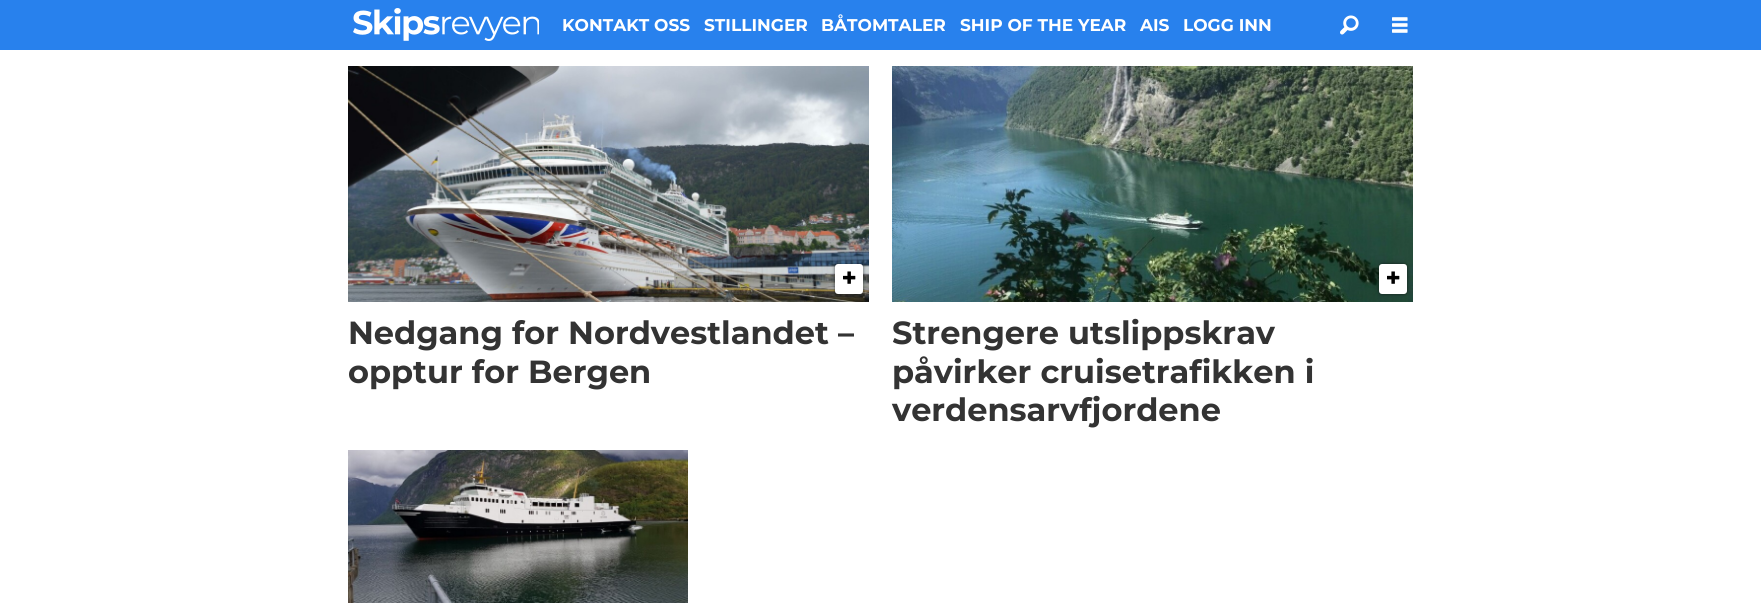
#include <cairo.h>
#include <math.h>
#include <stddef.h>


static void set_color(cairo_t *cr, unsigned color) {
    cairo_set_source_rgb(cr, (color >> 16) / 255.0, (color >> 8 & 255) / 255.0, (color & 255) / 255.0);
}

static void draw_text(cairo_t *cr, double x, double y, const char *s, const char *family, double size, int italic, int bold, unsigned color) {
    cairo_select_font_face(cr, family, italic ? CAIRO_FONT_SLANT_ITALIC : CAIRO_FONT_SLANT_NORMAL,
        bold ? CAIRO_FONT_WEIGHT_BOLD : CAIRO_FONT_WEIGHT_NORMAL);
    cairo_set_font_size(cr, size);
    set_color(cr, color);
    cairo_move_to(cr, x, y);
    cairo_show_text(cr, s);
}

static void fill_rect(cairo_t *cr, double x, double y, double w, double h, unsigned color) {
    set_color(cr, color);
    cairo_rectangle(cr, x, y, w, h);
    cairo_fill(cr);
}

static void rounded_rect(cairo_t *cr, double x, double y, double w, double h, double r) {
    cairo_new_sub_path(cr);
    cairo_arc(cr, x + w - r, y + h - r, r, 0, M_PI / 2);
    cairo_arc(cr, x + r, y + h - r, r, M_PI / 2, M_PI);
    cairo_arc(cr, x + r, y + r, r, M_PI, 1.5 * M_PI);
    cairo_arc(cr, x + w - r, y + r, r, 1.5 * M_PI, 2 * M_PI);
    cairo_close_path(cr);
}

static void draw_shadow(cairo_t *cr, double x, double y, double w, double h, double r, double blur, double alpha) {
    cairo_push_group_with_content(cr, CAIRO_CONTENT_ALPHA);
    cairo_set_operator(cr, CAIRO_OPERATOR_SOURCE);
    for (int i = 15; i >= -15 && fmin(w, h) + blur * i / 3 > 0; i -= 2) {
        double e = blur * i / 6;
        cairo_set_source_rgba(cr, 0, 0, 0, alpha * erfc((i - 1) / 8.5) / 2);
        rounded_rect(cr, x - e, y - e, w + 2 * e, h + 2 * e, fmax(0, fmin(r + e + blur * .6, fmin(w, h) / 2 + e)));
        cairo_fill(cr);
    }
    cairo_pattern_t *soft = cairo_pop_group(cr);
    cairo_mask(cr, soft);
    cairo_pattern_destroy(soft);
}

static void draw_image(cairo_t *cr, const char *path, double x, double y, double w, double h) {
    cairo_surface_t *image = cairo_image_surface_create_from_png(path);
    cairo_save(cr);
    cairo_set_source_surface(cr, image, x, y);
    cairo_rectangle(cr, x, y, w, h);
    cairo_fill(cr);
    cairo_restore(cr);
    cairo_surface_destroy(image);
}

int main(void) {
    cairo_surface_t *surface = cairo_image_surface_create(CAIRO_FORMAT_RGB24, 1761, 614);
    cairo_t *cr = cairo_create(surface);
    cairo_font_options_t *options = cairo_font_options_create();
    cairo_font_options_set_hint_metrics(options, CAIRO_HINT_METRICS_OFF);
    cairo_font_options_set_hint_style(options, CAIRO_HINT_STYLE_NONE);
    cairo_set_font_options(cr, options);
    cairo_set_miter_limit(cr, 4);
    set_color(cr, 0xFFFFFF);
    cairo_paint(cr);
    fill_rect(cr, 0, 0, 1761, 50, 0x2881ED);
    draw_image(cr, "assets/img1.png", 353, 8, 186, 33);
    draw_text(cr, 562, 31, "KONTAKT OSS", "Montserrat", 17, 0, 1, 0xFFFFFF);
    draw_text(cr, 704, 31, "STILLINGER", "Montserrat", 17, 0, 1, 0xFFFFFF);
    draw_text(cr, 821, 31, "BÅTOMTALER", "Montserrat", 17, 0, 1, 0xFFFFFF);
    draw_text(cr, 960, 31, "SHIP OF THE YEAR", "Montserrat", 17, 0, 1, 0xFFFFFF);
    draw_text(cr, 1140, 31, "AIS", "Montserrat", 17, 0, 1, 0xFFFFFF);
    draw_text(cr, 1183, 31, "LOGG INN", "Montserrat", 17, 0, 1, 0xFFFFFF);
    draw_image(cr, "assets/img2.png", 1340, 15, 19, 20);
    draw_image(cr, "assets/img3.png", 1392, 17, 16, 16);
    draw_image(cr, "assets/img4.png", 348, 66, 521, 236);
    set_color(cr, 0x000000);
    draw_shadow(cr, 836, 265, 26, 28, 2, 2, 1);
    set_color(cr, 0xFFFFFF);
    rounded_rect(cr, 835, 264, 28, 30, 3);
    cairo_fill(cr);
    draw_image(cr, "assets/img5.png", 843, 271, 13, 13);
    draw_text(cr, 348, 344, "Nedgang for Nordvestlandet –", "Montserrat", 32, 0, 1, 0x333333);
    draw_text(cr, 348, 383, "opptur for Bergen", "Montserrat", 32, 0, 1, 0x333333);
    draw_image(cr, "assets/img6.png", 892, 66, 521, 236);
    set_color(cr, 0x000000);
    draw_shadow(cr, 1380, 265, 26, 28, 2, 2, 1);
    set_color(cr, 0xFFFFFF);
    rounded_rect(cr, 1379, 264, 28, 30, 3);
    cairo_fill(cr);
    draw_image(cr, "assets/img5.png", 1387, 271, 13, 13);
    draw_text(cr, 892, 344, "Strengere utslippskrav", "Montserrat", 32, 0, 1, 0x333333);
    draw_text(cr, 892, 383, "påvirker cruisetrafikken i", "Montserrat", 32, 0, 1, 0x333333);
    draw_text(cr, 892, 421, "verdensarvfjordene", "Montserrat", 32, 0, 1, 0x333333);
    draw_image(cr, "assets/img7.png", 348, 450, 340, 153);
    cairo_surface_write_to_png(surface, "output.png");
    cairo_font_options_destroy(options);
    cairo_destroy(cr);
    cairo_surface_destroy(surface);
    return 0;
}
